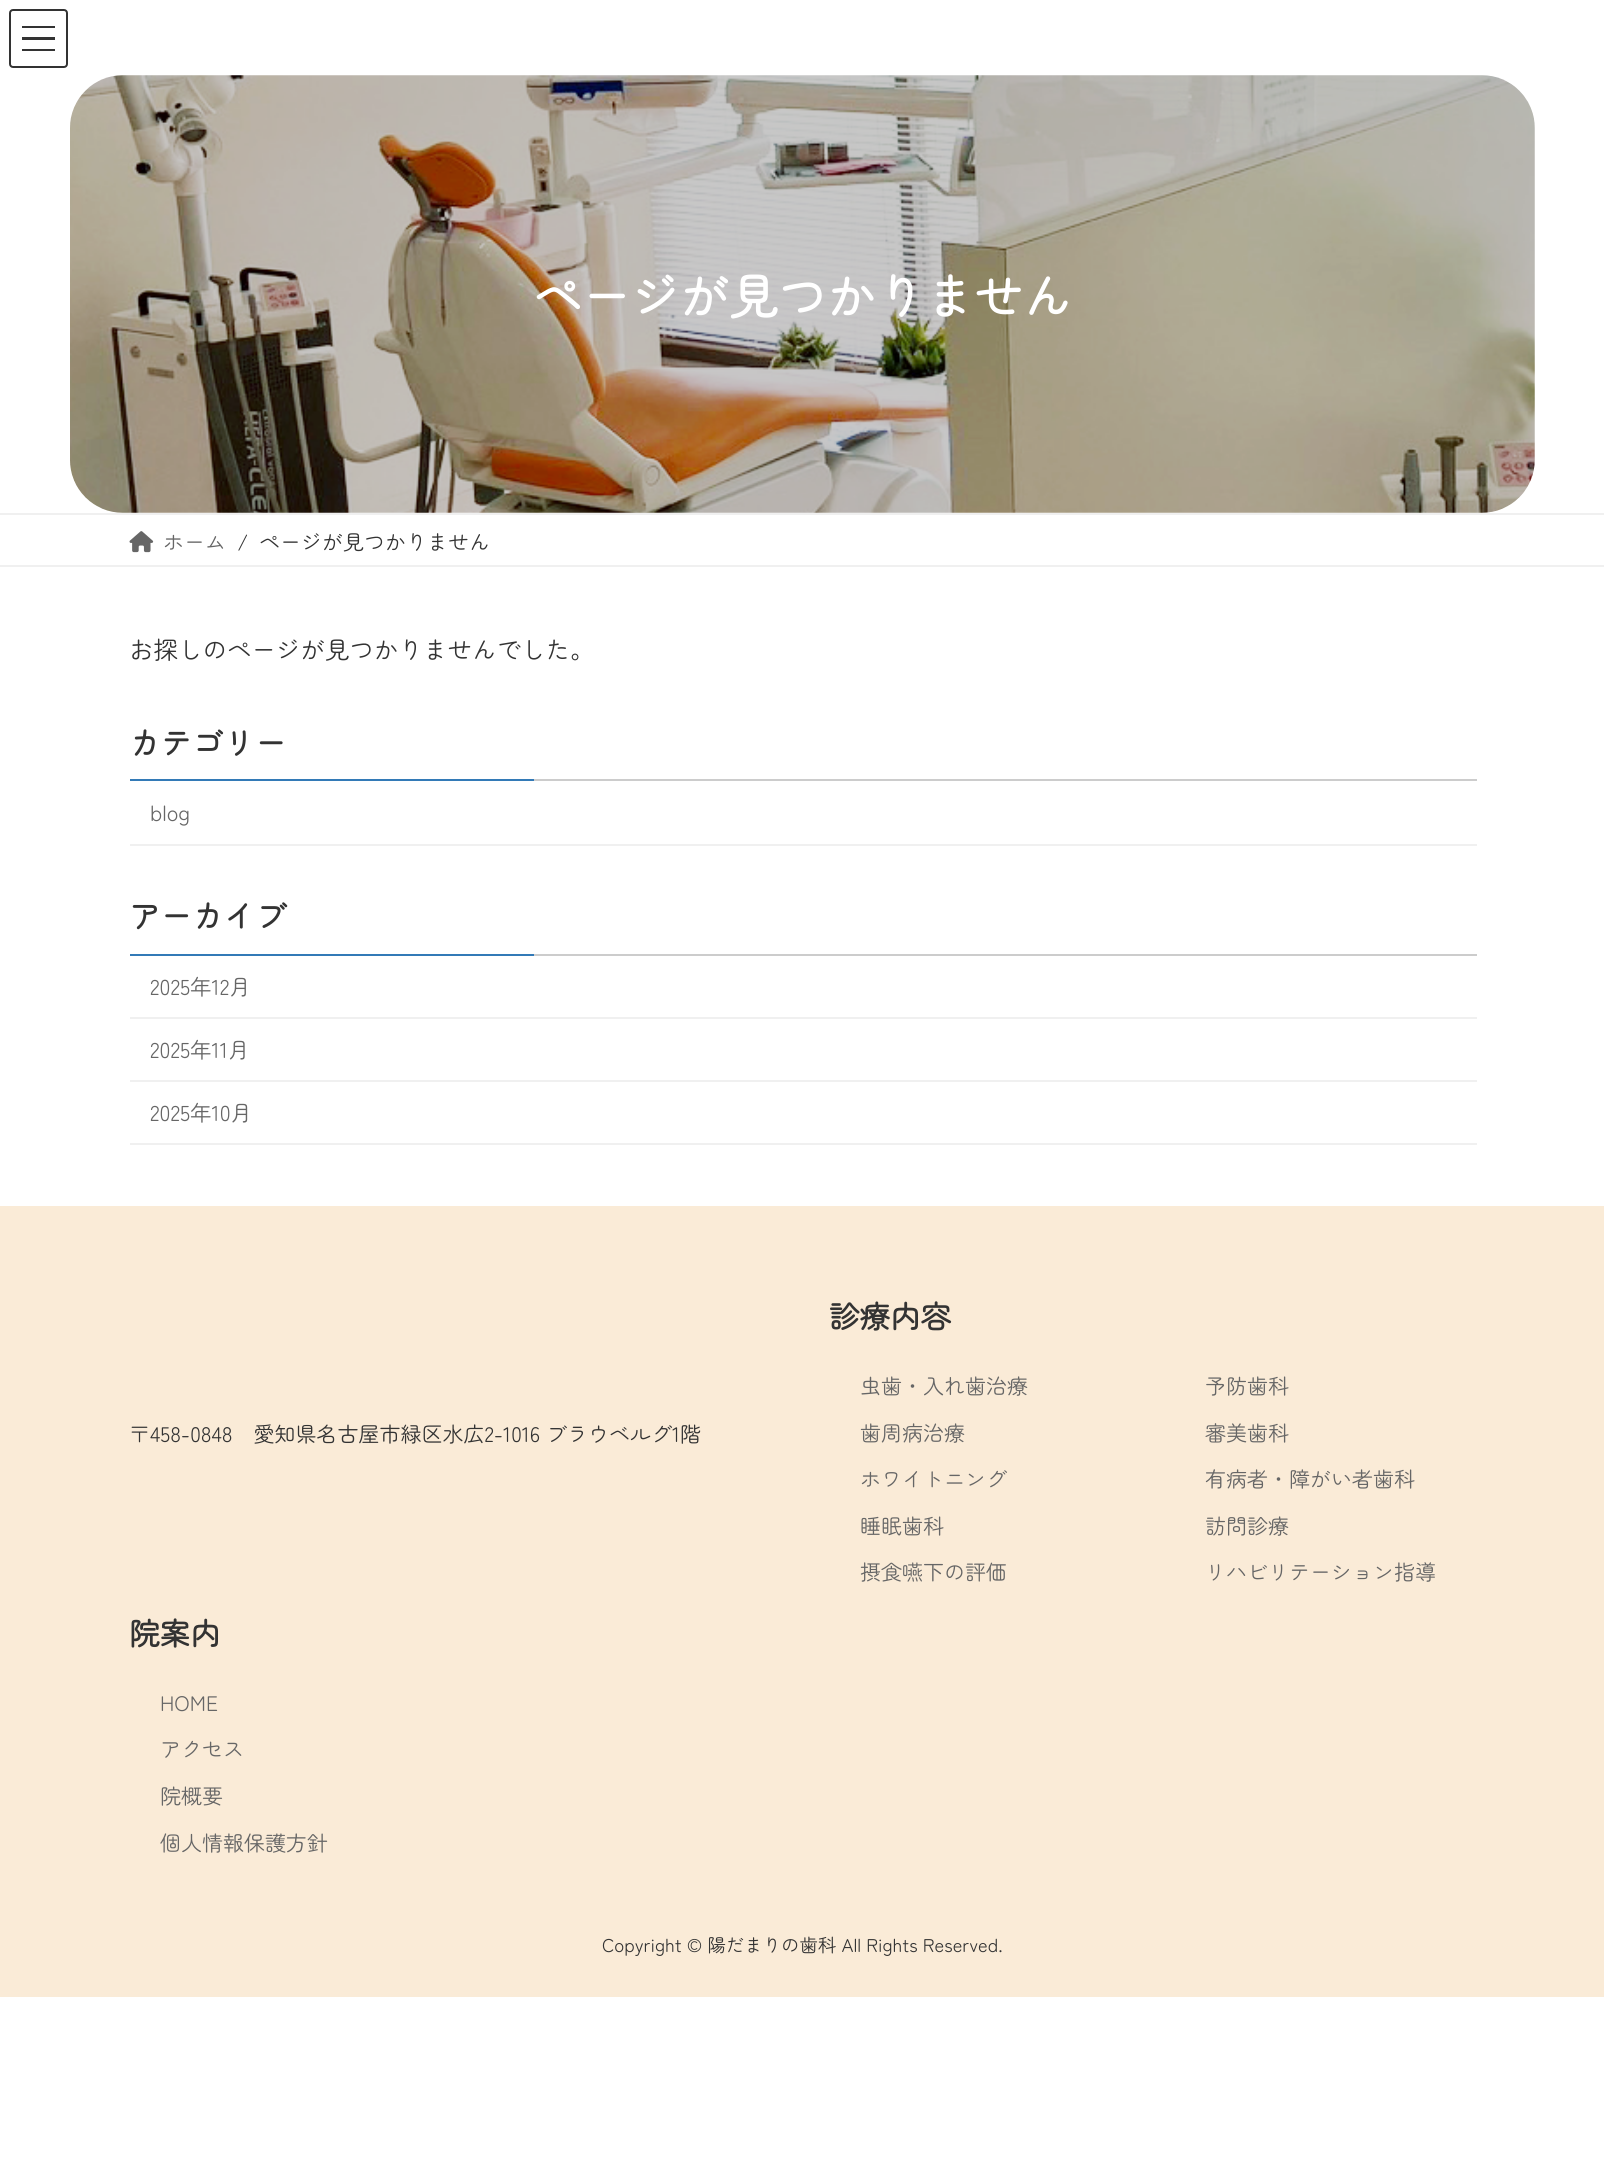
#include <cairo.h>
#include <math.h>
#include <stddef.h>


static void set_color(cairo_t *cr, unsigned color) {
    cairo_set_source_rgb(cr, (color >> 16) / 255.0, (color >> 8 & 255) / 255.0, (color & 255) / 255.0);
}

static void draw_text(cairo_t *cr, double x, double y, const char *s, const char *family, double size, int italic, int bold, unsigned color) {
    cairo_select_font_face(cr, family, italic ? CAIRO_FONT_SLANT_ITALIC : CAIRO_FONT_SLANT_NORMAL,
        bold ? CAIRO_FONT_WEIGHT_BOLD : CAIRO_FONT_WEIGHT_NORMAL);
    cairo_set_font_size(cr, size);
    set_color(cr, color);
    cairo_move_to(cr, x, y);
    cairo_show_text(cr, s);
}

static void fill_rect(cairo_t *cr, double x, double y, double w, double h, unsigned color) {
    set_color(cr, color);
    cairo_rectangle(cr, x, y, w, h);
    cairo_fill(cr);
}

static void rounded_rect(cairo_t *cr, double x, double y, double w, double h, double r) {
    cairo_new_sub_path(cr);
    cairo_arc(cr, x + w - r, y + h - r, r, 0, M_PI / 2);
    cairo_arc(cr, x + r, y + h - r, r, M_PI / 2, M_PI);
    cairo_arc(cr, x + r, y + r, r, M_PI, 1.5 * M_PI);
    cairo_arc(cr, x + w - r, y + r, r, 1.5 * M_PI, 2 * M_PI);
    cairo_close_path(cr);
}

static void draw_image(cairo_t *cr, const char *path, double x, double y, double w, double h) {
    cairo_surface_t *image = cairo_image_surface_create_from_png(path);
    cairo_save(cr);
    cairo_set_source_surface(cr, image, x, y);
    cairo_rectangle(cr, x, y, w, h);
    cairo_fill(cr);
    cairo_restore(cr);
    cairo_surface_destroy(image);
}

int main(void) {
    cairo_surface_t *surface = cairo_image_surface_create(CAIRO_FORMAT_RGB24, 1604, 2165);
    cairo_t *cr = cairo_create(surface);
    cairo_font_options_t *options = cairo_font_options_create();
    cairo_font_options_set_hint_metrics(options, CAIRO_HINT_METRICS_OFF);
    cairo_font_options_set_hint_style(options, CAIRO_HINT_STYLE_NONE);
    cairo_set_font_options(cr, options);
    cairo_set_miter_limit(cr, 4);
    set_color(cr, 0xFFFFFF);
    cairo_paint(cr);
    fill_rect(cr, 22, 26, 33, 2, 0x333333);
    fill_rect(cr, 22, 37, 33, 3, 0x333333);
    fill_rect(cr, 22, 49, 33, 2, 0x333333);
    rounded_rect(cr, 10, 10, 57, 57, 3);
    cairo_stroke(cr);
    draw_image(cr, "assets/img1.png", 70, 75, 1465, 438);
    draw_text(cr, 533, 315, "ページが見つかりません", "Zen Maru Gothic", 49, 0, 1, 0xFFFFFF);
    fill_rect(cr, 0, 513, 1604, 2, 0xF0F0F0);
    fill_rect(cr, 0, 565, 1604, 2, 0xF0F0F0);
    draw_image(cr, "assets/img2.png", 129, 531, 25, 22);
    draw_text(cr, 163, 550, "ホーム", "Zen Maru Gothic", 21, 0, 0, 0x666666);
    draw_text(cr, 237, 550, "/", "Zen Maru Gothic", 21, 0, 0, 0x333333);
    draw_text(cr, 259, 550, "ページが見つかりません", "Zen Maru Gothic", 21, 0, 0, 0x333333);
    draw_text(cr, 129, 659, "お探しのページが見つかりませんでした。", "Zen Maru Gothic", 24.5, 0, 0, 0x333333);
    fill_rect(cr, 534, 779, 943, 2, 0xCCCCCC);
    draw_text(cr, 129, 755, "カテゴリー", "Zen Maru Gothic", 31.5, 0, 1, 0x333333);
    fill_rect(cr, 130, 779, 404, 2, 0x337AB7);
    fill_rect(cr, 130, 844, 1347, 2, 0xF0F0F0);
    draw_text(cr, 150, 821, "blog", "Zen Maru Gothic", 21.5, 0, 0, 0x666666);
    fill_rect(cr, 534, 954, 943, 2, 0xCCCCCC);
    draw_text(cr, 129, 928, "アーカイブ", "Zen Maru Gothic", 31.5, 0, 1, 0x333333);
    fill_rect(cr, 130, 954, 404, 2, 0x337AB7);
    fill_rect(cr, 130, 1017, 1347, 2, 0xF0F0F0);
    draw_text(cr, 150, 995, "2025年12月", "Zen Maru Gothic", 21.5, 0, 0, 0x666666);
    fill_rect(cr, 130, 1080, 1347, 2, 0xF0F0F0);
    draw_text(cr, 150, 1058, "2025年11月", "Zen Maru Gothic", 21.5, 0, 0, 0x666666);
    fill_rect(cr, 130, 1143, 1347, 2, 0xF0F0F0);
    draw_text(cr, 150, 1121, "2025年10月", "Zen Maru Gothic", 21.5, 0, 0, 0x666666);
    fill_rect(cr, 0, 1206, 1604, 791, 0xFAEBD7);
    draw_text(cr, 129, 1442, "〒458-0848　愛知県名古屋市緑区水広2-1016 ブラウベルグ1階", "Zen Maru Gothic", 21, 0, 0, 0x333333);
    draw_text(cr, 829, 1328, "診療内容", "Zen Maru Gothic", 30.5, 0, 1, 0x333333);
    draw_text(cr, 860, 1394, "虫歯・入れ歯治療", "Zen Maru Gothic", 21, 0, 0, 0x666666);
    draw_text(cr, 860, 1441, "歯周病治療", "Zen Maru Gothic", 21, 0, 0, 0x666666);
    draw_text(cr, 860, 1487, "ホワイトニング", "Zen Maru Gothic", 21, 0, 0, 0x666666);
    draw_text(cr, 860, 1534, "睡眠歯科", "Zen Maru Gothic", 21, 0, 0, 0x666666);
    draw_text(cr, 860, 1580, "摂食嚥下の評価", "Zen Maru Gothic", 21, 0, 0, 0x666666);
    draw_text(cr, 1205, 1394, "予防歯科", "Zen Maru Gothic", 21, 0, 0, 0x666666);
    draw_text(cr, 1205, 1441, "審美歯科", "Zen Maru Gothic", 21, 0, 0, 0x666666);
    draw_text(cr, 1205, 1487, "有病者・障がい者歯科", "Zen Maru Gothic", 21, 0, 0, 0x666666);
    draw_text(cr, 1205, 1534, "訪問診療", "Zen Maru Gothic", 21, 0, 0, 0x666666);
    draw_text(cr, 1205, 1580, "リハビリテーション指導", "Zen Maru Gothic", 21, 0, 0, 0x666666);
    draw_text(cr, 129, 1645, "院案内", "Zen Maru Gothic", 30.5, 0, 1, 0x333333);
    draw_text(cr, 160, 1711, "HOME", "Zen Maru Gothic", 21, 0, 0, 0x666666);
    draw_text(cr, 160, 1757, "アクセス", "Zen Maru Gothic", 21, 0, 0, 0x666666);
    draw_text(cr, 160, 1804, "院概要", "Zen Maru Gothic", 21, 0, 0, 0x666666);
    draw_text(cr, 160, 1851, "個人情報保護方針", "Zen Maru Gothic", 21, 0, 0, 0x666666);
    draw_text(cr, 602, 1952, "Copyright © 陽だまりの歯科 All Rights Reserved.", "Zen Maru Gothic", 18.4, 0, 0, 0x333333);
    cairo_surface_write_to_png(surface, "output.png");
    cairo_font_options_destroy(options);
    cairo_destroy(cr);
    cairo_surface_destroy(surface);
    return 0;
}
